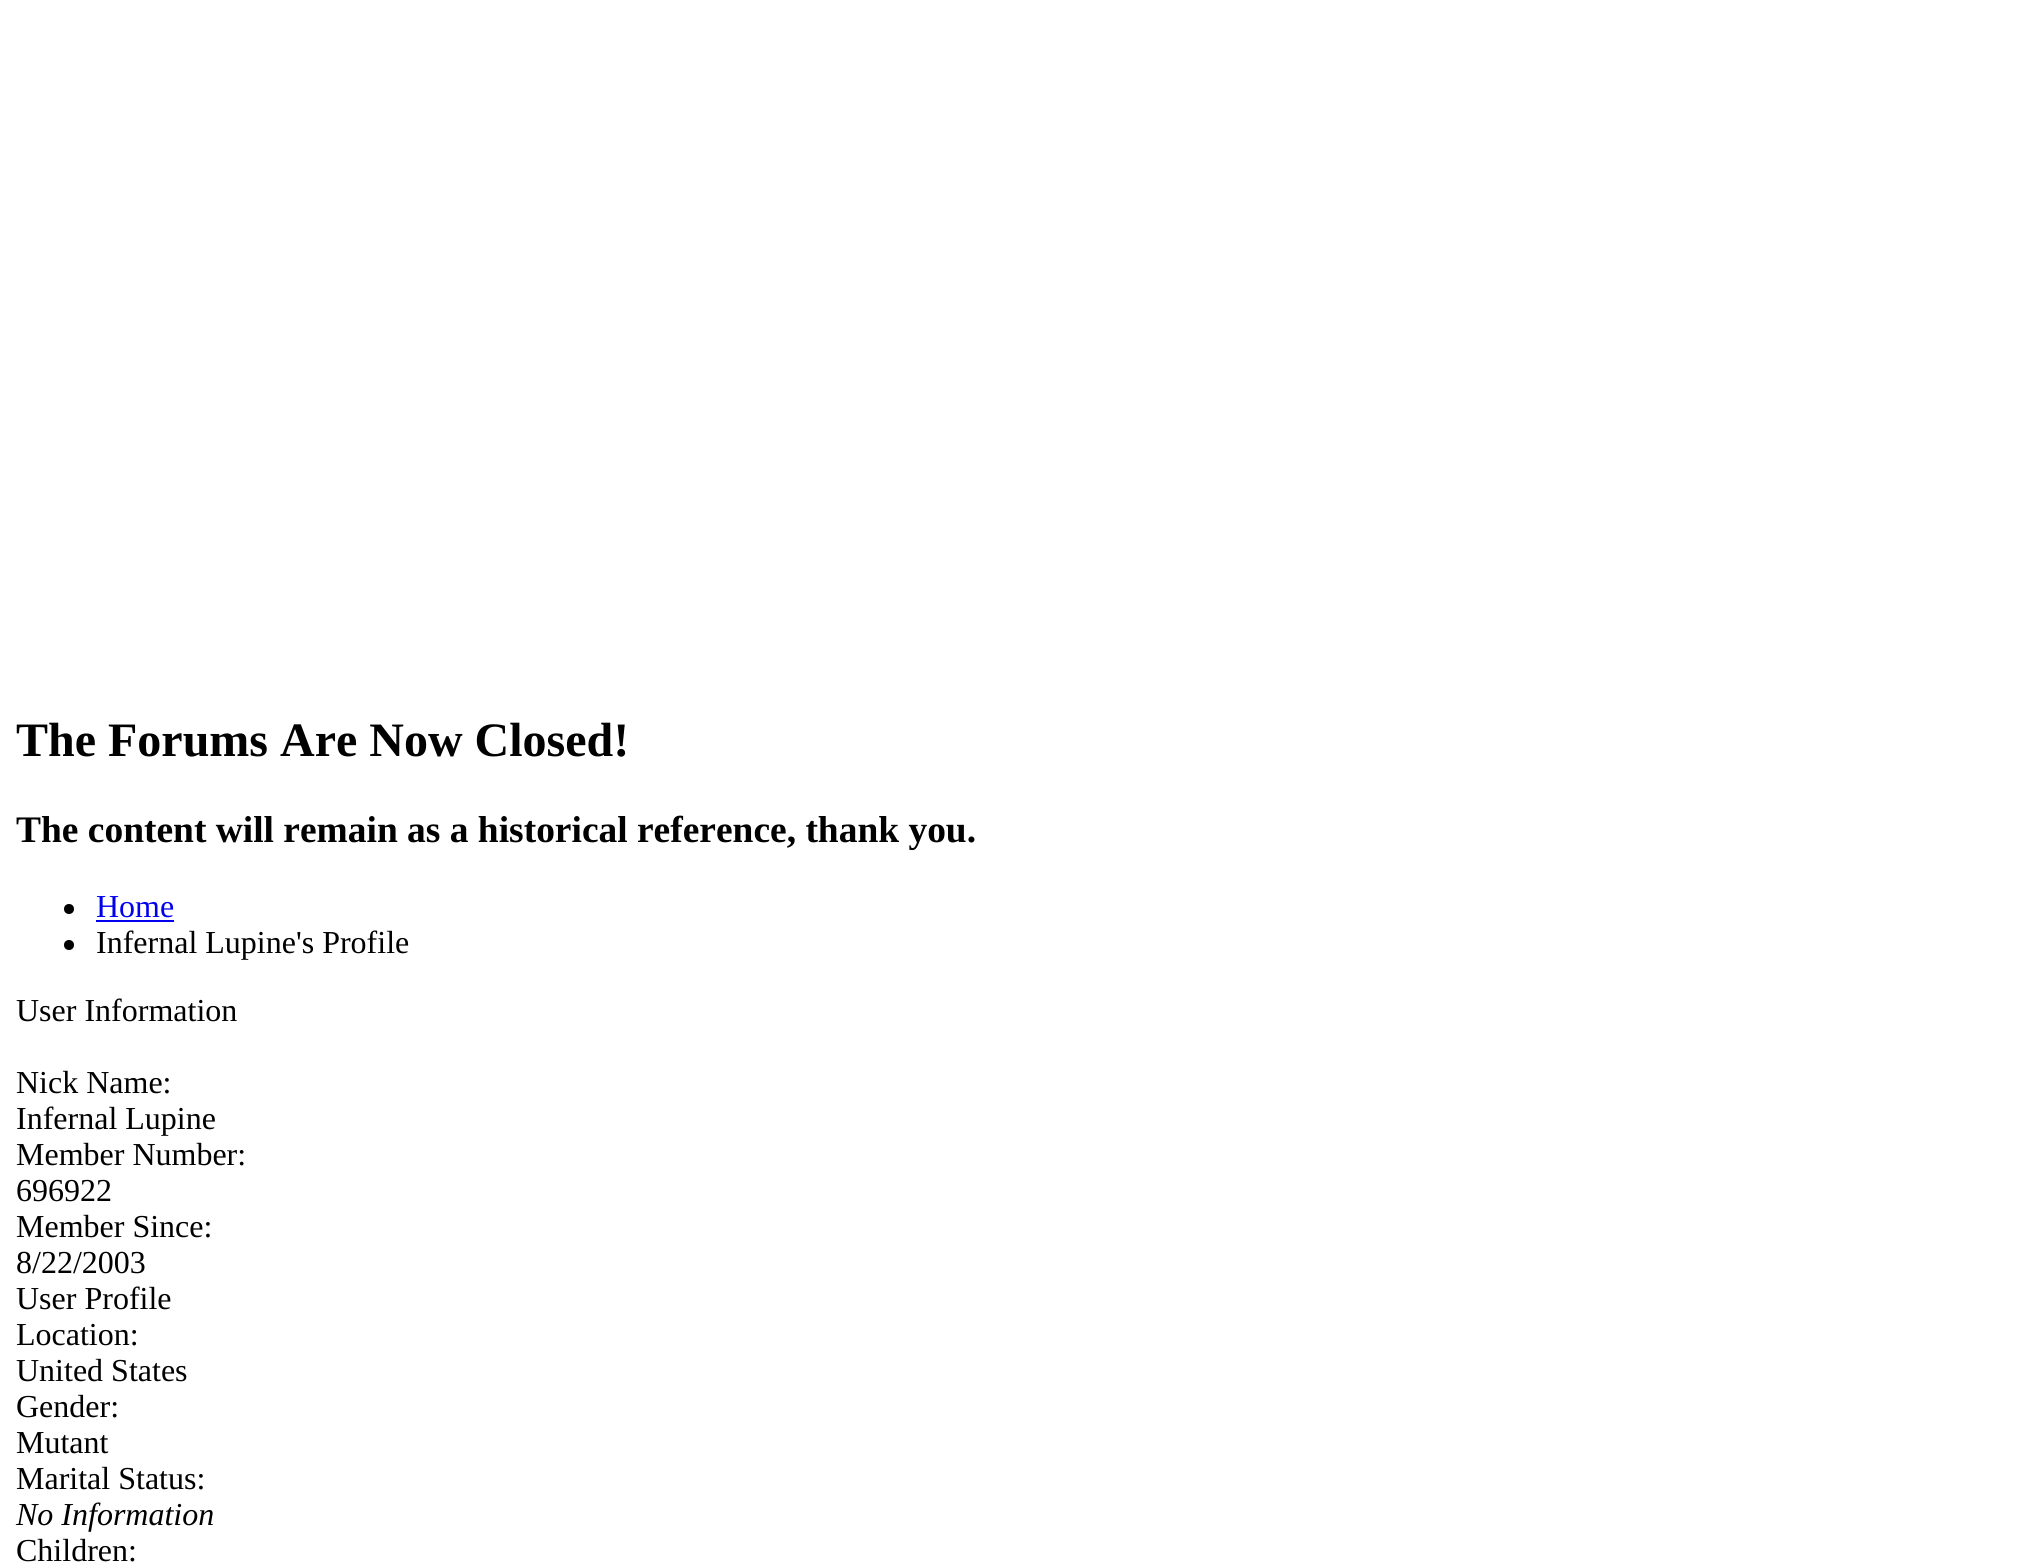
#include <cairo.h>
#include <math.h>
#include <stddef.h>


static void set_color(cairo_t *cr, unsigned color) {
    cairo_set_source_rgb(cr, (color >> 16) / 255.0, (color >> 8 & 255) / 255.0, (color & 255) / 255.0);
}

static void draw_text(cairo_t *cr, double x, double y, const char *s, const char *family, double size, int italic, int bold, unsigned color) {
    cairo_select_font_face(cr, family, italic ? CAIRO_FONT_SLANT_ITALIC : CAIRO_FONT_SLANT_NORMAL,
        bold ? CAIRO_FONT_WEIGHT_BOLD : CAIRO_FONT_WEIGHT_NORMAL);
    cairo_set_font_size(cr, size);
    set_color(cr, color);
    cairo_move_to(cr, x, y);
    cairo_show_text(cr, s);
}

static void fill_rect(cairo_t *cr, double x, double y, double w, double h, unsigned color) {
    set_color(cr, color);
    cairo_rectangle(cr, x, y, w, h);
    cairo_fill(cr);
}

int main(void) {
    cairo_surface_t *surface = cairo_image_surface_create(CAIRO_FORMAT_RGB24, 2042, 1566);
    cairo_t *cr = cairo_create(surface);
    cairo_font_options_t *options = cairo_font_options_create();
    cairo_font_options_set_hint_metrics(options, CAIRO_HINT_METRICS_OFF);
    cairo_font_options_set_hint_style(options, CAIRO_HINT_STYLE_NONE);
    cairo_set_font_options(cr, options);
    cairo_set_miter_limit(cr, 4);
    set_color(cr, 0xFFFFFF);
    cairo_paint(cr);
    draw_text(cr, 16, 756, "The Forums Are Now Closed!", "Liberation Serif", 48, 0, 1, 0x000000);
    draw_text(cr, 16, 842, "The content will remain as a historical reference, thank you.", "Liberation Serif", 37.45, 0, 1, 0x000000);
    cairo_new_path(cr);
    cairo_arc(cr, 69, 909, 5, 0, 2 * M_PI);
    cairo_fill(cr);
    draw_text(cr, 96, 917, "Home", "Liberation Serif", 32, 0, 0, 0x0000EE);
    fill_rect(cr, 96, 920, 78, 2, 0x0000EE);
    set_color(cr, 0x000000);
    cairo_new_path(cr);
    cairo_arc(cr, 69, 945, 5, 0, 2 * M_PI);
    cairo_fill(cr);
    draw_text(cr, 96, 953, "Infernal Lupine's Profile", "Liberation Serif", 32, 0, 0, 0x000000);
    draw_text(cr, 16, 1021, "User Information", "Liberation Serif", 32, 0, 0, 0x000000);
    draw_text(cr, 16, 1093, "Nick Name:", "Liberation Serif", 32, 0, 0, 0x000000);
    draw_text(cr, 16, 1129, "Infernal Lupine", "Liberation Serif", 32, 0, 0, 0x000000);
    draw_text(cr, 16, 1165, "Member Number:", "Liberation Serif", 32, 0, 0, 0x000000);
    draw_text(cr, 16, 1201, "696922", "Liberation Serif", 32, 0, 0, 0x000000);
    draw_text(cr, 16, 1237, "Member Since:", "Liberation Serif", 32, 0, 0, 0x000000);
    draw_text(cr, 16, 1273, "8/22/2003", "Liberation Serif", 32, 0, 0, 0x000000);
    draw_text(cr, 16, 1309, "User Profile", "Liberation Serif", 32, 0, 0, 0x000000);
    draw_text(cr, 16, 1345, "Location:", "Liberation Serif", 32, 0, 0, 0x000000);
    draw_text(cr, 16, 1381, "United States", "Liberation Serif", 32, 0, 0, 0x000000);
    draw_text(cr, 16, 1417, "Gender:", "Liberation Serif", 32, 0, 0, 0x000000);
    draw_text(cr, 16, 1453, "Mutant", "Liberation Serif", 32, 0, 0, 0x000000);
    draw_text(cr, 16, 1489, "Marital Status:", "Liberation Serif", 32, 0, 0, 0x000000);
    draw_text(cr, 16, 1525, "No Information", "Liberation Serif", 32, 1, 0, 0x000000);
    draw_text(cr, 16, 1561, "Children:", "Liberation Serif", 32, 0, 0, 0x000000);
    cairo_surface_write_to_png(surface, "output.png");
    cairo_font_options_destroy(options);
    cairo_destroy(cr);
    cairo_surface_destroy(surface);
    return 0;
}
